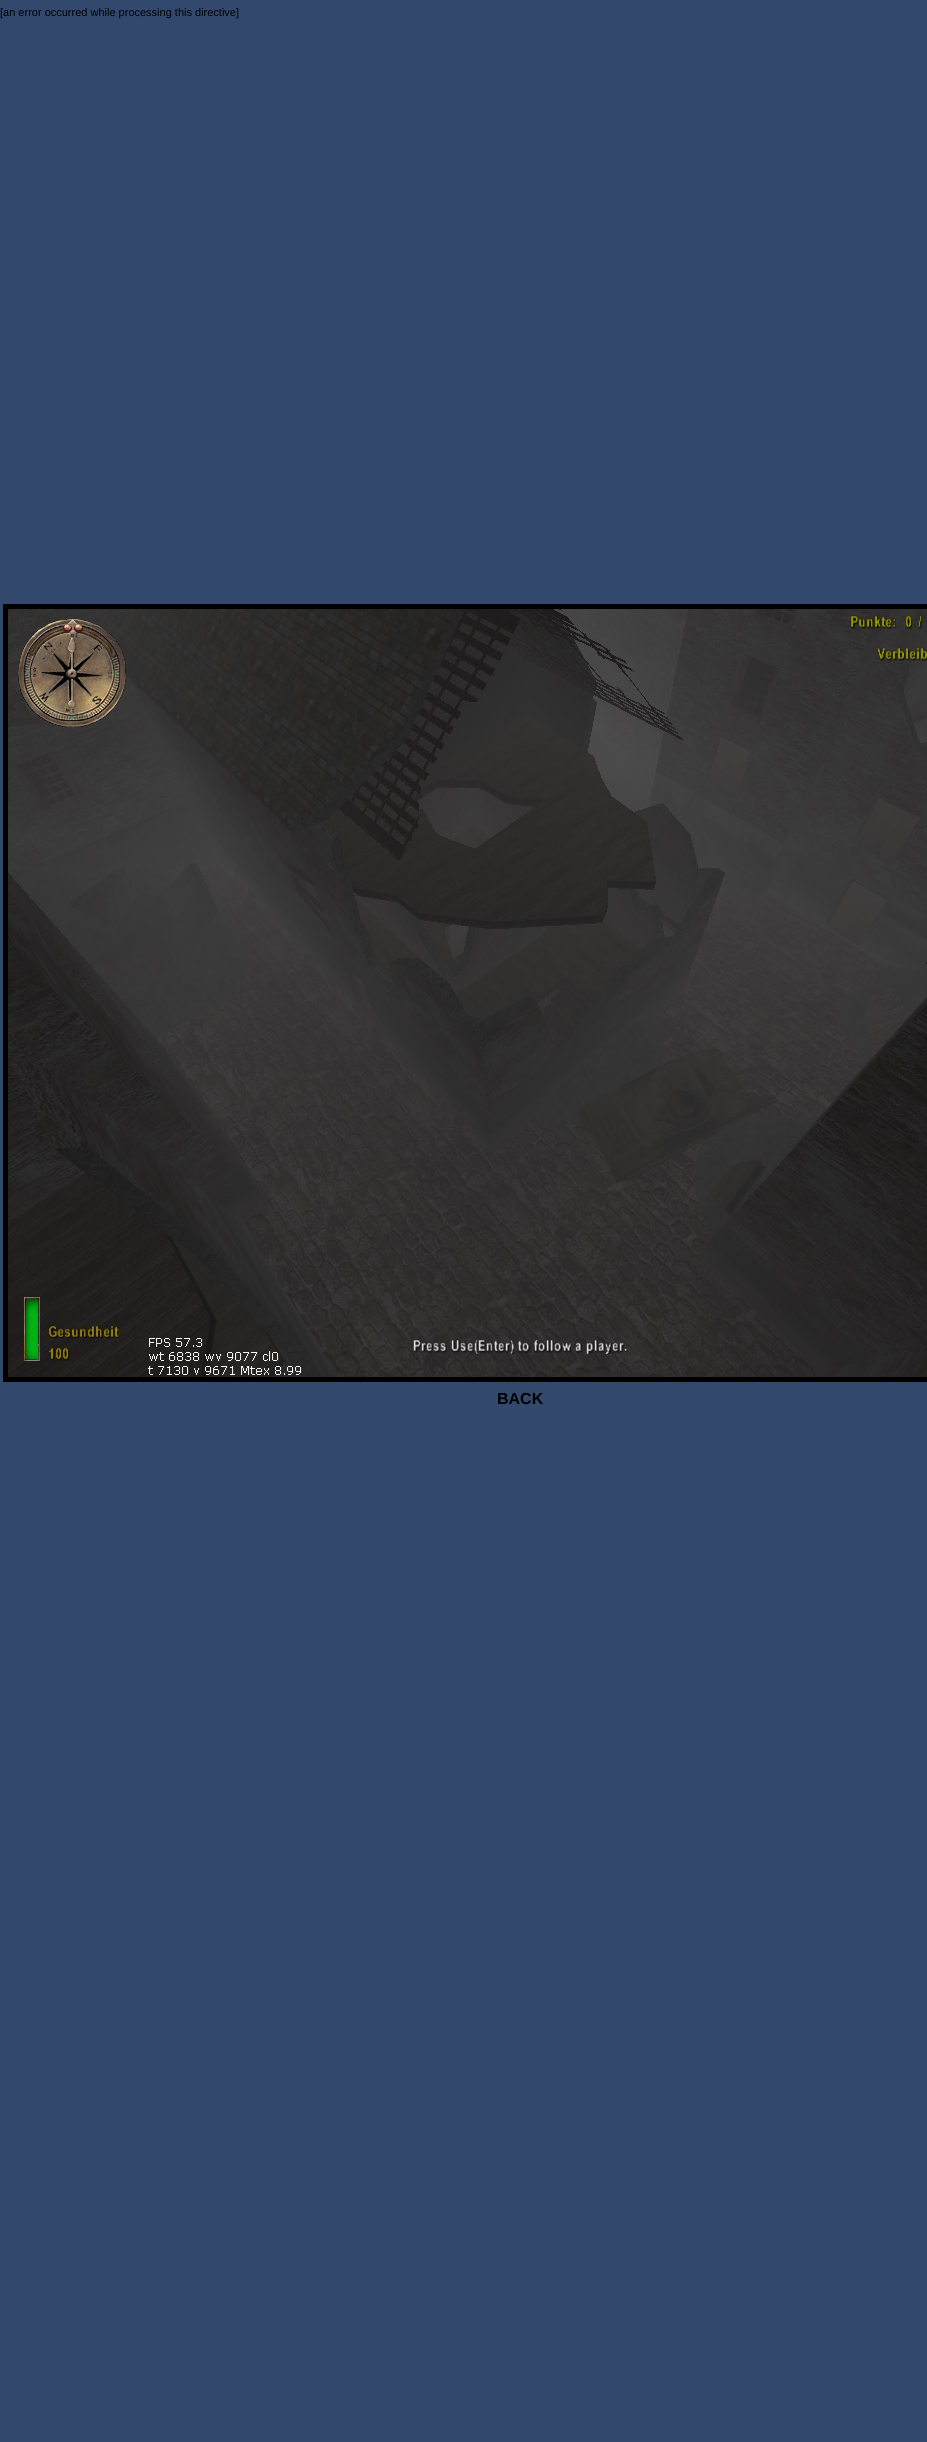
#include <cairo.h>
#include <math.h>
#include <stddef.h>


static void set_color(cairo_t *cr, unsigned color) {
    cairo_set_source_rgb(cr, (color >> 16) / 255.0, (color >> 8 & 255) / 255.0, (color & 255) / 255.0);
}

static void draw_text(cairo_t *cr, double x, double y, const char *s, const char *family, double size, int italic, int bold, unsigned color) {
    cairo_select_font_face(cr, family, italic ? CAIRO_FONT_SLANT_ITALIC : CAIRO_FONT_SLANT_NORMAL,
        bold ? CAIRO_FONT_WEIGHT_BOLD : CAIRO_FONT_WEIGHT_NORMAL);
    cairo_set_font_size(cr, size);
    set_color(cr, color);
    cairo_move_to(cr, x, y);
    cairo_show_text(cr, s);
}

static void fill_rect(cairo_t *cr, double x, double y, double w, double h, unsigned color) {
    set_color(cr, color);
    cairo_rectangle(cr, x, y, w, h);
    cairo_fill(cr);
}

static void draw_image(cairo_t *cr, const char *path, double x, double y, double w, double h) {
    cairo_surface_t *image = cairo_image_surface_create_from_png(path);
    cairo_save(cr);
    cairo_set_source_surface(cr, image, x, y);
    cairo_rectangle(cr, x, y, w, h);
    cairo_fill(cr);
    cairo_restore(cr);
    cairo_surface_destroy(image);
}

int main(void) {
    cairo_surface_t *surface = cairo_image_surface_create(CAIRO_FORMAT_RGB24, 927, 2442);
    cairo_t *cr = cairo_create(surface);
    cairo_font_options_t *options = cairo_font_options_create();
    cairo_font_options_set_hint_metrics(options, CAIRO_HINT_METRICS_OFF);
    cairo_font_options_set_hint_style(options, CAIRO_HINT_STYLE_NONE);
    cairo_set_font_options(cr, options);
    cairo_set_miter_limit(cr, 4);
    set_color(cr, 0x32486C);
    cairo_paint(cr);
    draw_text(cr, 0, 16, "[an error occurred while processing this directive]", "Liberation Sans", 11, 0, 0, 0x000000);
    fill_rect(cr, 3, 604, 924, 778, 0x000000);
    draw_image(cr, "assets/img1.png", 8, 609, 919, 768);
    draw_text(cr, 497, 1404, "BACK", "Liberation Sans", 16, 0, 1, 0x000000);
    cairo_surface_write_to_png(surface, "output.png");
    cairo_font_options_destroy(options);
    cairo_destroy(cr);
    cairo_surface_destroy(surface);
    return 0;
}
